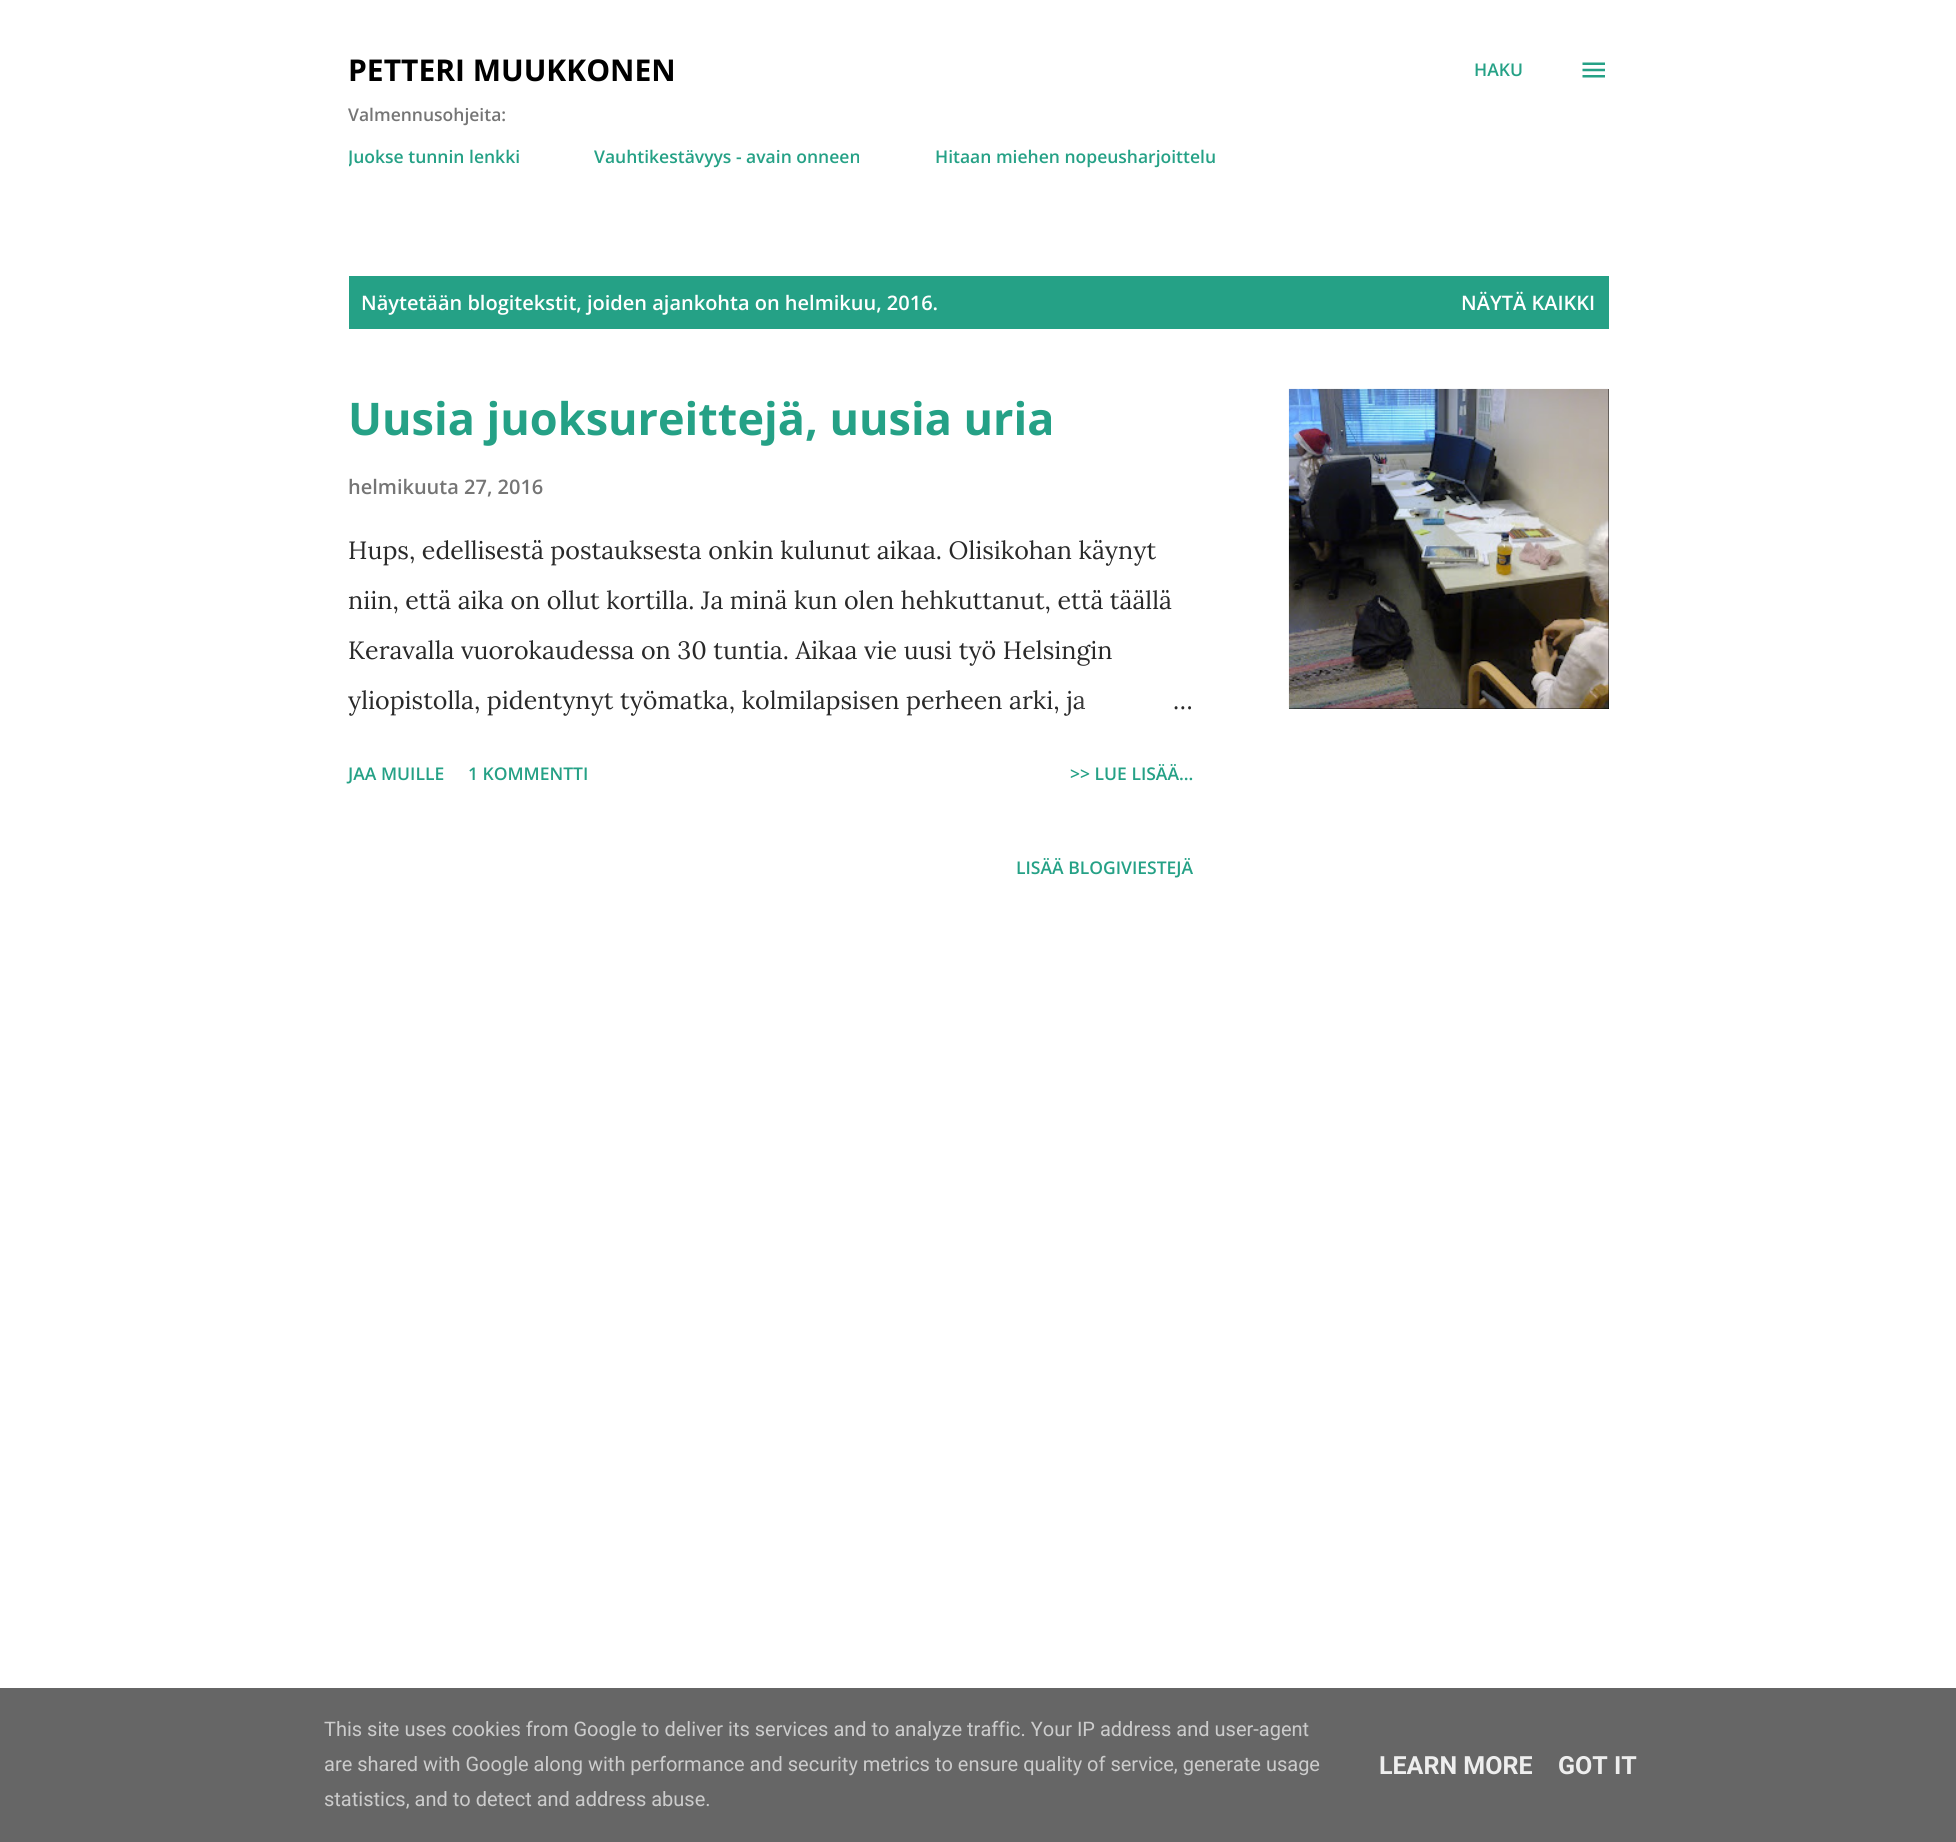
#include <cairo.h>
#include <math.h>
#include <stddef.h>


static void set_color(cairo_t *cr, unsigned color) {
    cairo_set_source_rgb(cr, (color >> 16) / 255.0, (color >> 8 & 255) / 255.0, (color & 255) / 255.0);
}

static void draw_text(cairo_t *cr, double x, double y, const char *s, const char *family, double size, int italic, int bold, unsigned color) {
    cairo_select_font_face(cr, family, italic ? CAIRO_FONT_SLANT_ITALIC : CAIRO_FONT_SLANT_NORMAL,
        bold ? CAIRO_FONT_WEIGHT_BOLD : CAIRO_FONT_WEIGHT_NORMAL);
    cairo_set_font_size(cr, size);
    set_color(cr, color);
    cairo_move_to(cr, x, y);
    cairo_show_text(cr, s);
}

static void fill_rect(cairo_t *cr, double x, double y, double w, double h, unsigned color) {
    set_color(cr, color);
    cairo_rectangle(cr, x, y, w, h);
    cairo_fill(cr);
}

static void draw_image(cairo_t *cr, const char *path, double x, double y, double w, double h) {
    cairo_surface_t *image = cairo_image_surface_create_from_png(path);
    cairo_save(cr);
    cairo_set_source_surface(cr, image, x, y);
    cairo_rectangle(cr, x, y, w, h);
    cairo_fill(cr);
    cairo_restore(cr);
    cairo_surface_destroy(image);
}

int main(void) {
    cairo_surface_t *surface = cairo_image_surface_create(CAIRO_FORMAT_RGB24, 1956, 1842);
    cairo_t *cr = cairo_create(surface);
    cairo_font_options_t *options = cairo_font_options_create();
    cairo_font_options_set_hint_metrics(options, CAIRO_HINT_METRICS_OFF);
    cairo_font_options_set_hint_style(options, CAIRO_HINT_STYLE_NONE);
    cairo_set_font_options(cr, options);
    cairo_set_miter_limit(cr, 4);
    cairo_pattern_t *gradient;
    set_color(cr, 0xFFFFFF);
    cairo_paint(cr);
    draw_text(cr, 348, 81, "PETTERI MUUKKONEN", "Open Sans", 30, 0, 1, 0x000000);
    draw_text(cr, 1474, 76, "HAKU", "Open Sans SemiBold", 17.5, 0, 0, 0x25A186);
    draw_image(cr, "assets/img1.png", 1582, 62, 23, 16);
    draw_text(cr, 348, 121, "Valmennusohjeita:", "Open Sans SemiBold", 17.5, 0, 0, 0x757575);
    cairo_save(cr);
    cairo_rectangle(cr, 349, 126, 1260, 60);
    cairo_clip(cr);
    draw_text(cr, 348, 163, "Juokse tunnin lenkki", "Open Sans SemiBold", 17.5, 0, 0, 0x25A186);
    cairo_restore(cr);
    draw_text(cr, 594, 163, "Vauhtikestävyys - avain onneen", "Open Sans SemiBold", 17.5, 0, 0, 0x25A186);
    draw_text(cr, 935, 163, "Hitaan miehen nopeusharjoittelu", "Open Sans SemiBold", 17.5, 0, 0, 0x25A186);
    fill_rect(cr, 349, 276, 1260, 53, 0x25A186);
    draw_text(cr, 361, 310, "Näytetään blogitekstit, joiden ajankohta on helmikuu, 2016.", "Open Sans SemiBold", 20, 0, 0, 0xFFFFFF);
    draw_text(cr, 1461, 310, "NÄYTÄ KAIKKI", "Open Sans SemiBold", 20, 0, 0, 0xFFFFFF);
    draw_text(cr, 348, 435, "Uusia juoksureittejä, uusia uria", "Open Sans", 45, 0, 1, 0x25A186);
    draw_text(cr, 348, 494, "helmikuuta 27, 2016", "Open Sans SemiBold", 20, 0, 0, 0x757575);
    draw_text(cr, 348, 559, "Hups, edellisestä postauksesta onkin kulunut aikaa. Olisikohan käynyt", "Lora", 25, 0, 0, 0x292929);
    draw_text(cr, 348, 609, "niin, että aika on ollut kortilla. Ja minä kun olen hehkuttanut, että täällä", "Lora", 25, 0, 0, 0x292929);
    draw_text(cr, 348, 659, "Keravalla vuorokaudessa on 30 tuntia. Aikaa vie uusi työ Helsingin", "Lora", 25, 0, 0, 0x292929);
    draw_text(cr, 348, 709, "yliopistolla, pidentynyt työmatka, kolmilapsisen perheen arki, ja", "Lora", 25, 0, 0, 0x292929);
    gradient = cairo_pattern_create_linear(1194, 700, 1074, 700);
    cairo_pattern_add_color_stop_rgba(gradient, 0, 1, 1, 1, 1);
    cairo_pattern_add_color_stop_rgba(gradient, 0.2, 1, 1, 1, 1);
    cairo_pattern_add_color_stop_rgba(gradient, 1, 1, 1, 1, 0);
    cairo_set_source(cr, gradient);
    cairo_pattern_destroy(gradient);
    cairo_rectangle(cr, 1076, 696, 10, 14);
    cairo_fill(cr);
    draw_text(cr, 1173, 709, "…", "Lora", 25, 0, 0, 0x292929);
    draw_text(cr, 348, 780, "JAA MUILLE", "Open Sans SemiBold", 17.5, 0, 0, 0x25A186);
    draw_text(cr, 468, 780, "1 KOMMENTTI", "Open Sans SemiBold", 17.5, 0, 0, 0x25A186);
    draw_text(cr, 1070, 780, ">> LUE LISÄÄ...", "Open Sans SemiBold", 17.5, 0, 0, 0x25A186);
    fill_rect(cr, 1289, 389, 320, 320, 0x000000);
    draw_image(cr, "assets/img2.png", 1288, 388, 321, 321);
    draw_text(cr, 1016, 874, "LISÄÄ BLOGIVIESTEJÄ", "Open Sans SemiBold", 17.5, 0, 0, 0x25A186);
    fill_rect(cr, 0, 1688, 1956, 154, 0x666666);
    draw_text(cr, 324, 1736, "This site uses cookies from Google to deliver its services and to analyze traffic. Your IP address and user-agent", "Roboto", 20, 0, 0, 0xCCCCCC);
    draw_text(cr, 324, 1771, "are shared with Google along with performance and security metrics to ensure quality of service, generate usage", "Roboto", 20, 0, 0, 0xCCCCCC);
    draw_text(cr, 324, 1806, "statistics, and to detect and address abuse.", "Roboto", 20, 0, 0, 0xCCCCCC);
    draw_text(cr, 1379, 1774, "LEARN MORE", "Roboto", 25, 0, 1, 0xEEEEEE);
    draw_text(cr, 1558, 1774, "GOT IT", "Roboto", 25, 0, 1, 0xEEEEEE);
    cairo_surface_write_to_png(surface, "output.png");
    cairo_font_options_destroy(options);
    cairo_destroy(cr);
    cairo_surface_destroy(surface);
    return 0;
}
